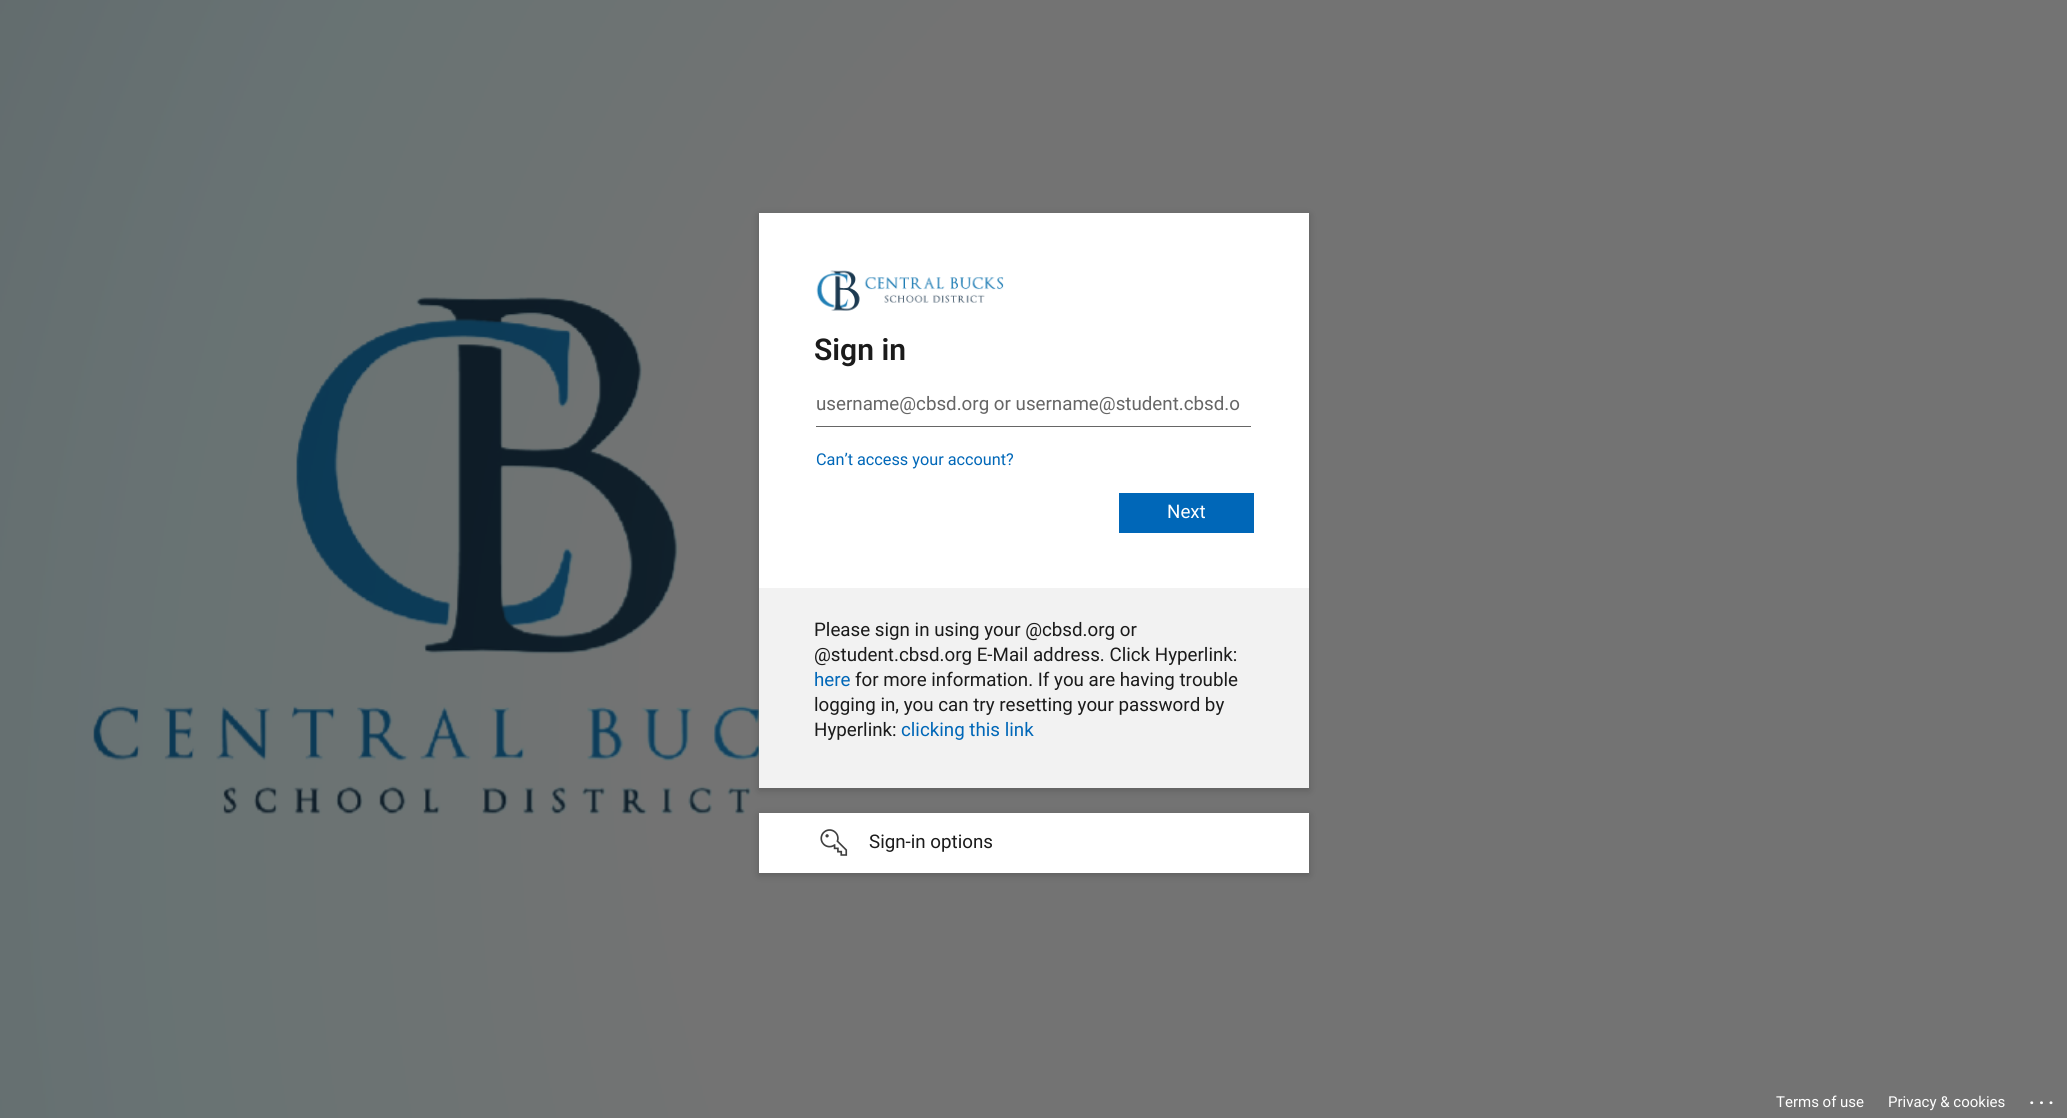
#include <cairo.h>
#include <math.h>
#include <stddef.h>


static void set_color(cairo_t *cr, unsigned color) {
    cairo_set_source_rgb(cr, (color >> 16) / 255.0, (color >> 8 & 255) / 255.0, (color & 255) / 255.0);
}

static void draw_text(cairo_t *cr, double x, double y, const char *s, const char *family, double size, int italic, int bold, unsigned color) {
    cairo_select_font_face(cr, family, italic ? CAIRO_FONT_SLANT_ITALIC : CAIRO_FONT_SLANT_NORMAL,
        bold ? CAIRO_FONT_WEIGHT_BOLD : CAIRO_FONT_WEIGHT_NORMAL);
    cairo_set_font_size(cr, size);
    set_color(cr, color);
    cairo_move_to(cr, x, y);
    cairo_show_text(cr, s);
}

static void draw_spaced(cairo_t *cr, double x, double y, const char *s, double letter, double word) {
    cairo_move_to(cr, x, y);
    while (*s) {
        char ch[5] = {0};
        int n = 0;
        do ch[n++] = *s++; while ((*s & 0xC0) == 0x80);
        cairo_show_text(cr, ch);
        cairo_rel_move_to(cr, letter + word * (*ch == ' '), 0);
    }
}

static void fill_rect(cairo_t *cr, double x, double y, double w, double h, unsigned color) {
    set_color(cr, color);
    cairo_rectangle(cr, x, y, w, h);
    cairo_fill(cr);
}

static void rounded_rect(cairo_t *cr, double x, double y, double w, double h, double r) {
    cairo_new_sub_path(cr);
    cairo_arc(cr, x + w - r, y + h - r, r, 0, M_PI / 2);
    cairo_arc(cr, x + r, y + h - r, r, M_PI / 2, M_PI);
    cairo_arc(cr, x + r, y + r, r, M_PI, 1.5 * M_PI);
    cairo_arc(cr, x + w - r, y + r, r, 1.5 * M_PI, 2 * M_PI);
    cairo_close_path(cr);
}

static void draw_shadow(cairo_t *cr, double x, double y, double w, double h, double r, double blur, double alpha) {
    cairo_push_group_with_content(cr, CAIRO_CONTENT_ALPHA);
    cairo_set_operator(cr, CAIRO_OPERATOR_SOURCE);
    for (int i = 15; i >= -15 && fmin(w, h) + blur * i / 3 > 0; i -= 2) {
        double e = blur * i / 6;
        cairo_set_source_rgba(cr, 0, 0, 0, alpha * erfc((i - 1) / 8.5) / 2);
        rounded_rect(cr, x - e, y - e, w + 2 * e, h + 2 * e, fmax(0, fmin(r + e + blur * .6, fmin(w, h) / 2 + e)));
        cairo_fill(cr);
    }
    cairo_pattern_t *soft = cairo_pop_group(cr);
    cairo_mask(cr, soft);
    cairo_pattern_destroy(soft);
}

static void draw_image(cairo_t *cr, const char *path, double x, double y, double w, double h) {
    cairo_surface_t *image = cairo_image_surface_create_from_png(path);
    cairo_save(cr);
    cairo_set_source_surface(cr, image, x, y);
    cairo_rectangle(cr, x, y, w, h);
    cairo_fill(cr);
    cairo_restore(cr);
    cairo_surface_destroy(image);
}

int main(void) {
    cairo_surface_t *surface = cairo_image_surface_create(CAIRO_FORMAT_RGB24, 2067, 1118);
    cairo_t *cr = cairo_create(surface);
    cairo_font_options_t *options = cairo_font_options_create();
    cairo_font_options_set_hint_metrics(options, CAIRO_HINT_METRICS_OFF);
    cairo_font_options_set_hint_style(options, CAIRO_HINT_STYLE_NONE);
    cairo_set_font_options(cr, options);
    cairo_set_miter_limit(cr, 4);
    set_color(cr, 0xFFFFFF);
    cairo_paint(cr);
    draw_image(cr, "assets/img1.png", 0, 0, 2067, 1118);
    set_color(cr, 0x000000);
    draw_shadow(cr, 759, 215, 550, 575, 0, 4, 0.2);
    fill_rect(cr, 759, 213, 550, 375, 0xFFFFFF);
    draw_image(cr, "assets/img2.png", 816, 270, 188, 41);
    draw_text(cr, 814, 360, "Sign in", "Roboto SemiBold", 30, 0, 0, 0x1B1B1B);
    fill_rect(cr, 816, 426, 435, 1, 0x666666);
    cairo_save(cr);
    cairo_rectangle(cr, 816, 393, 423, 22);
    cairo_clip(cr);
    draw_text(cr, 816, 410, "username@cbsd.org or username@student.cbsd.o", "Roboto", 18.75, 0, 0, 0x666666);
    cairo_restore(cr);
    draw_text(cr, 816, 465, "Can’t access your account?", "Roboto", 16.25, 0, 0, 0x0067B8);
    fill_rect(cr, 1119, 493, 135, 40, 0x0067B8);
    draw_text(cr, 1167, 518, "Next", "Roboto", 18.75, 0, 0, 0xFFFFFF);
    fill_rect(cr, 759, 588, 550, 200, 0xF2F2F2);
    draw_text(cr, 814, 636, "Please sign in using your @cbsd.org or", "Roboto", 18.75, 0, 0, 0x1B1B1B);
    draw_text(cr, 814, 661, "@student.cbsd.org E-Mail address. Click Hyperlink:", "Roboto", 18.75, 0, 0, 0x1B1B1B);
    draw_text(cr, 814, 686, "here", "Roboto", 18.75, 0, 0, 0x0067B8);
    draw_text(cr, 855, 686, "for more information. If you are having trouble", "Roboto", 18.75, 0, 0, 0x1B1B1B);
    draw_text(cr, 814, 711, "logging in, you can try resetting your password by", "Roboto", 18.75, 0, 0, 0x1B1B1B);
    draw_text(cr, 814, 736, "Hyperlink:", "Roboto", 18.75, 0, 0, 0x1B1B1B);
    draw_text(cr, 901, 736, "clicking this link", "Roboto", 18.75, 0, 0, 0x0067B8);
    set_color(cr, 0x000000);
    draw_shadow(cr, 759, 815, 550, 60, 0, 4, 0.2);
    fill_rect(cr, 759, 813, 550, 60, 0xFFFFFF);
    draw_image(cr, "assets/img3.png", 820, 829, 28, 27);
    draw_text(cr, 869, 848, "Sign-in options", "Roboto", 18.75, 0, 0, 0x1B1B1B);
    draw_text(cr, 1776, 1107, "Terms of use", "Roboto", 15, 0, 0, 0xFFFFFF);
    draw_text(cr, 1888, 1107, "Privacy & cookies", "Roboto", 15, 0, 0, 0xFFFFFF);
    cairo_select_font_face(cr, "Roboto SemiBold", CAIRO_FONT_SLANT_NORMAL, CAIRO_FONT_WEIGHT_NORMAL);
    cairo_set_font_size(cr, 20);
    draw_spaced(cr, 2029, 1104, "...", 4, 0);
    cairo_surface_write_to_png(surface, "output.png");
    cairo_font_options_destroy(options);
    cairo_destroy(cr);
    cairo_surface_destroy(surface);
    return 0;
}
